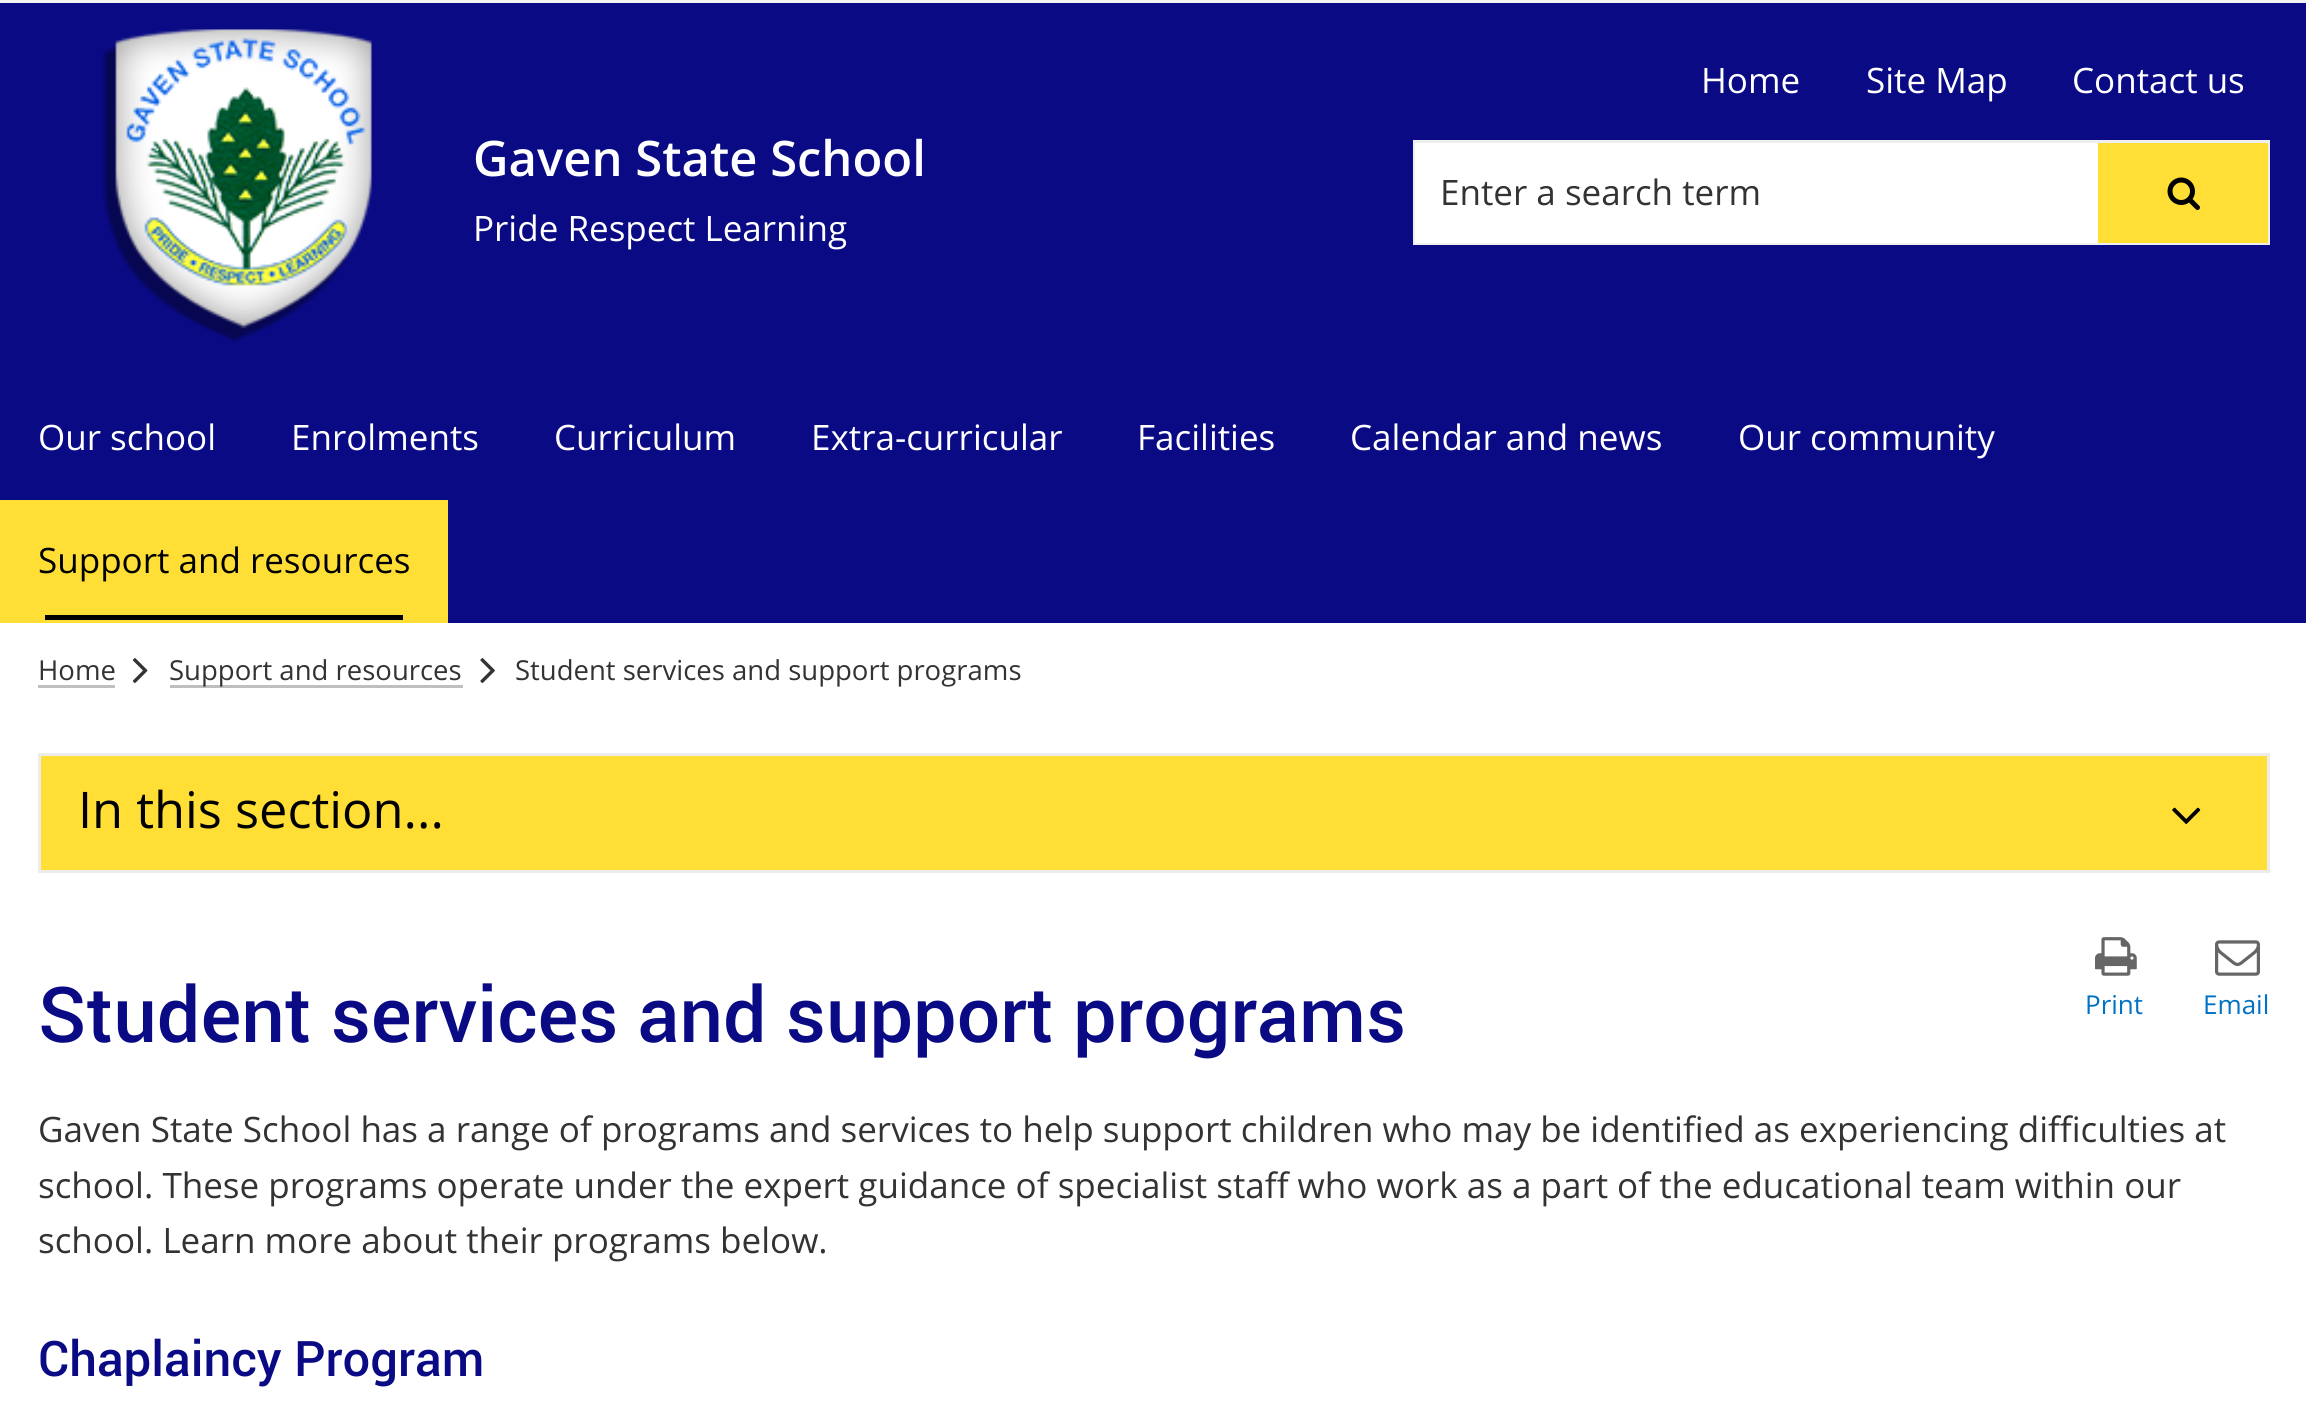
#include <cairo.h>
#include <math.h>
#include <stddef.h>


static void set_color(cairo_t *cr, unsigned color) {
    cairo_set_source_rgb(cr, (color >> 16) / 255.0, (color >> 8 & 255) / 255.0, (color & 255) / 255.0);
}

static void draw_text(cairo_t *cr, double x, double y, const char *s, const char *family, double size, int italic, int bold, unsigned color) {
    cairo_select_font_face(cr, family, italic ? CAIRO_FONT_SLANT_ITALIC : CAIRO_FONT_SLANT_NORMAL,
        bold ? CAIRO_FONT_WEIGHT_BOLD : CAIRO_FONT_WEIGHT_NORMAL);
    cairo_set_font_size(cr, size);
    set_color(cr, color);
    cairo_move_to(cr, x, y);
    cairo_show_text(cr, s);
}

static void fill_rect(cairo_t *cr, double x, double y, double w, double h, unsigned color) {
    set_color(cr, color);
    cairo_rectangle(cr, x, y, w, h);
    cairo_fill(cr);
}

static void draw_image(cairo_t *cr, const char *path, double x, double y, double w, double h) {
    cairo_surface_t *image = cairo_image_surface_create_from_png(path);
    cairo_save(cr);
    cairo_set_source_surface(cr, image, x, y);
    cairo_rectangle(cr, x, y, w, h);
    cairo_fill(cr);
    cairo_restore(cr);
    cairo_surface_destroy(image);
}

int main(void) {
    cairo_surface_t *surface = cairo_image_surface_create(CAIRO_FORMAT_RGB24, 2306, 1418);
    cairo_t *cr = cairo_create(surface);
    cairo_font_options_t *options = cairo_font_options_create();
    cairo_font_options_set_hint_metrics(options, CAIRO_HINT_METRICS_OFF);
    cairo_font_options_set_hint_style(options, CAIRO_HINT_STYLE_NONE);
    cairo_set_font_options(cr, options);
    cairo_set_miter_limit(cr, 4);
    set_color(cr, 0xFFFFFF);
    cairo_paint(cr);
    fill_rect(cr, 0, 0, 2306, 3, 0xF3F3F3);
    fill_rect(cr, 0, 3, 2306, 620, 0x0A0A85);
    draw_image(cr, "assets/img1.png", 102, 29, 270, 313);
    draw_text(cr, 473, 176, "Gaven State School", "Open Sans SemiBold", 49, 0, 0, 0xFFFFFF);
    draw_text(cr, 473, 241, "Pride Respect Learning", "Open Sans", 35, 0, 0, 0xFFFFFF);
    draw_text(cr, 1701, 93, "Home", "Open Sans", 35, 0, 0, 0xFFFFFF);
    draw_text(cr, 1866, 93, "Site Map", "Open Sans", 35, 0, 0, 0xFFFFFF);
    draw_text(cr, 2072, 93, "Contact us", "Open Sans", 35, 0, 0, 0xFFFFFF);
    cairo_rectangle(cr, 1414.5, 141.5, 854, 102);
    set_color(cr, 0xEFEFEF);
    cairo_set_line_width(cr, 3);
    cairo_stroke(cr);
    fill_rect(cr, 1415, 143, 683, 100, 0xFFFFFF);
    draw_text(cr, 1440, 205, "Enter a search term", "Open Sans", 35, 0, 0, 0x333333);
    fill_rect(cr, 2098, 143, 170, 100, 0xFFDE36);
    draw_image(cr, "assets/img2.png", 2167, 177, 33, 33);
    draw_text(cr, 38, 450, "Our school", "Open Sans", 35, 0, 0, 0xFFFFFF);
    draw_text(cr, 291, 450, "Enrolments", "Open Sans", 35, 0, 0, 0xFFFFFF);
    draw_text(cr, 554, 450, "Curriculum", "Open Sans", 35, 0, 0, 0xFFFFFF);
    draw_text(cr, 811, 450, "Extra-curricular", "Open Sans", 35, 0, 0, 0xFFFFFF);
    draw_text(cr, 1137, 450, "Facilities", "Open Sans", 35, 0, 0, 0xFFFFFF);
    draw_text(cr, 1350, 450, "Calendar and news", "Open Sans", 35, 0, 0, 0xFFFFFF);
    draw_text(cr, 1738, 450, "Our community", "Open Sans", 35, 0, 0, 0xFFFFFF);
    fill_rect(cr, 0, 500, 448, 123, 0xFFDE36);
    draw_text(cr, 38, 573, "Support and resources", "Open Sans", 35, 0, 0, 0x000000);
    fill_rect(cr, 45, 615, 358, 5, 0x000000);
    draw_text(cr, 38, 680, "Home", "Open Sans", 27.5, 0, 0, 0x333333);
    fill_rect(cr, 38, 685, 77, 3, 0xBFBFBF);
    draw_image(cr, "assets/img3.png", 132, 658, 16, 25);
    fill_rect(cr, 170, 685, 293, 3, 0xBFBFBF);
    draw_text(cr, 169, 680, "Support and resources", "Open Sans", 27.5, 0, 0, 0x333333);
    draw_image(cr, "assets/img4.png", 480, 658, 15, 25);
    draw_text(cr, 515, 680, "Student services and support programs", "Open Sans", 27.5, 0, 0, 0x333333);
    set_color(cr, 0xFFDE36);
    cairo_rectangle(cr, 39.5, 754.5, 2229, 117);
    cairo_fill_preserve(cr);
    set_color(cr, 0xECECEC);
    cairo_stroke(cr);
    draw_text(cr, 78, 828, "In this section...", "Open Sans", 50.5, 0, 0, 0x000000);
    draw_image(cr, "assets/img5.png", 2172, 807, 29, 17);
    draw_text(cr, 38, 1042, "Student services and support programs", "Roboto Medium", 77, 0, 0, 0x0A0A85);
    draw_image(cr, "assets/img6.png", 2095, 937, 42, 39);
    draw_text(cr, 2085, 1014, "Print", "Open Sans", 26, 0, 0, 0x0072C6);
    draw_image(cr, "assets/img7.png", 2215, 940, 45, 36);
    draw_text(cr, 2203, 1014, "Email", "Open Sans", 26, 0, 0, 0x0072C6);
    draw_text(cr, 38, 1142, "Gaven State School has a range of programs and services to help support children who may be identified as experiencing difficulties at", "Open Sans", 35, 0, 0, 0x333333);
    draw_text(cr, 38, 1198, "school. These programs operate under the expert guidance of specialist staff who work as a part of the educational team within our", "Open Sans", 35, 0, 0, 0x333333);
    draw_text(cr, 38, 1253, "school. Learn more about their programs below.", "Open Sans", 35, 0, 0, 0x333333);
    draw_text(cr, 38, 1376, "Chaplaincy Program", "Roboto Medium", 49, 0, 0, 0x0A0A85);
    cairo_surface_write_to_png(surface, "output.png");
    cairo_font_options_destroy(options);
    cairo_destroy(cr);
    cairo_surface_destroy(surface);
    return 0;
}
